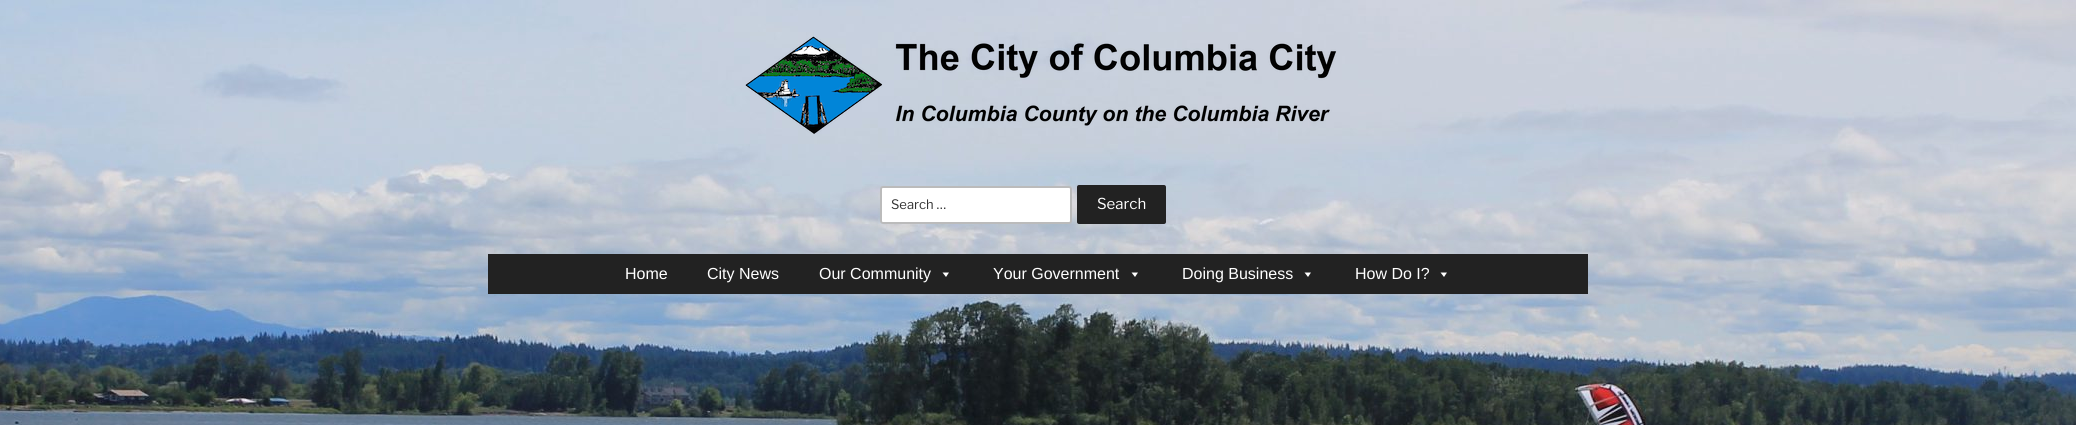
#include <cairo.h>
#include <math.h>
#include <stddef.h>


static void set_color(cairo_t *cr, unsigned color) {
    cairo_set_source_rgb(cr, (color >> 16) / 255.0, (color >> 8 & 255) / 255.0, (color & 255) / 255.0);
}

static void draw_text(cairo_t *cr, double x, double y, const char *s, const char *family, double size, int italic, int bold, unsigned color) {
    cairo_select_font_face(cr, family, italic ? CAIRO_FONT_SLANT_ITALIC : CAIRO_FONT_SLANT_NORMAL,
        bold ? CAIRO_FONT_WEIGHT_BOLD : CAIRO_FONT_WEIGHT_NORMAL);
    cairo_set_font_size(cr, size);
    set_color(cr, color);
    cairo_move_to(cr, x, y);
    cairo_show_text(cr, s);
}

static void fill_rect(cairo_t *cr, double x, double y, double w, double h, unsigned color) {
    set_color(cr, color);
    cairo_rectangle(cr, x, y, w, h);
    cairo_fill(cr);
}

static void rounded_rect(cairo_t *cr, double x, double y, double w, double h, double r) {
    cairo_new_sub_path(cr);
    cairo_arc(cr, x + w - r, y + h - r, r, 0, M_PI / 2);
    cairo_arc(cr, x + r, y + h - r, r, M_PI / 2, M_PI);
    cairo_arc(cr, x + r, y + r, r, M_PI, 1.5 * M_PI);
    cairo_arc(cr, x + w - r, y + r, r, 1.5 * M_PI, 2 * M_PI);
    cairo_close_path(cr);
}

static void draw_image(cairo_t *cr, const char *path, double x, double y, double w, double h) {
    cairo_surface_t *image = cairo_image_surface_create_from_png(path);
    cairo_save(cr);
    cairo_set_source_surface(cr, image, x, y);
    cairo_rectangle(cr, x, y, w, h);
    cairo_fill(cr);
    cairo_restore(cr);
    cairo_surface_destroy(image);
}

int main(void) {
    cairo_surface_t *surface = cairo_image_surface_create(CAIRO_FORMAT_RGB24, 2076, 425);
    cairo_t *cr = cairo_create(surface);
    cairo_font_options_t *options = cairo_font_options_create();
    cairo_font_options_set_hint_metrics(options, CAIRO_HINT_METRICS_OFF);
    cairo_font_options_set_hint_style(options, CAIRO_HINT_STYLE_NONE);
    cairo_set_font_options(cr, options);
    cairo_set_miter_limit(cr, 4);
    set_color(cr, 0xFFFFFF);
    cairo_paint(cr);
    draw_image(cr, "assets/img1.png", 0, 0, 2076, 425);
    draw_image(cr, "assets/img2.png", 745, 36, 592, 98);
    set_color(cr, 0xFFFFFF);
    rounded_rect(cr, 881, 187, 190, 36, 2);
    cairo_fill_preserve(cr);
    set_color(cr, 0xBBBBBB);
    cairo_stroke(cr);
    draw_text(cr, 891, 209, "Search …", "Libre Franklin", 13, 0, 0, 0x333333);
    set_color(cr, 0x222222);
    rounded_rect(cr, 1077, 185, 89, 39, 2);
    cairo_fill(cr);
    draw_text(cr, 1097, 209, "Search", "Libre Franklin", 15, 0, 0, 0xFFFFFF);
    fill_rect(cr, 488, 254, 1100, 40, 0x222222);
    draw_text(cr, 625, 279, "Home", "Liberation Sans", 16, 0, 0, 0xFFFFFF);
    draw_text(cr, 707, 279, "City News", "Liberation Sans", 16, 0, 0, 0xFFFFFF);
    draw_text(cr, 819, 279, "Our Community", "Liberation Sans", 16, 0, 0, 0xFFFFFF);
    cairo_new_path(cr);
    cairo_move_to(cr, 949, 272.5);
    cairo_line_to(cr, 946, 277);
    cairo_line_to(cr, 942.5, 272.5);
    cairo_close_path(cr);
    cairo_fill(cr);
    draw_text(cr, 993, 279, "Your Government", "Liberation Sans", 16, 0, 0, 0xFFFFFF);
    cairo_new_path(cr);
    cairo_move_to(cr, 1138, 272.5);
    cairo_line_to(cr, 1135, 277);
    cairo_line_to(cr, 1131.5, 272.5);
    cairo_close_path(cr);
    cairo_fill(cr);
    draw_text(cr, 1182, 279, "Doing Business", "Liberation Sans", 16, 0, 0, 0xFFFFFF);
    cairo_new_path(cr);
    cairo_move_to(cr, 1311, 272.5);
    cairo_line_to(cr, 1308, 277);
    cairo_line_to(cr, 1304.5, 272.5);
    cairo_close_path(cr);
    cairo_fill(cr);
    draw_text(cr, 1355, 279, "How Do I?", "Liberation Sans", 16, 0, 0, 0xFFFFFF);
    cairo_new_path(cr);
    cairo_move_to(cr, 1447, 272.5);
    cairo_line_to(cr, 1444, 277);
    cairo_line_to(cr, 1440.5, 272.5);
    cairo_close_path(cr);
    cairo_fill(cr);
    cairo_surface_write_to_png(surface, "output.png");
    cairo_font_options_destroy(options);
    cairo_destroy(cr);
    cairo_surface_destroy(surface);
    return 0;
}
